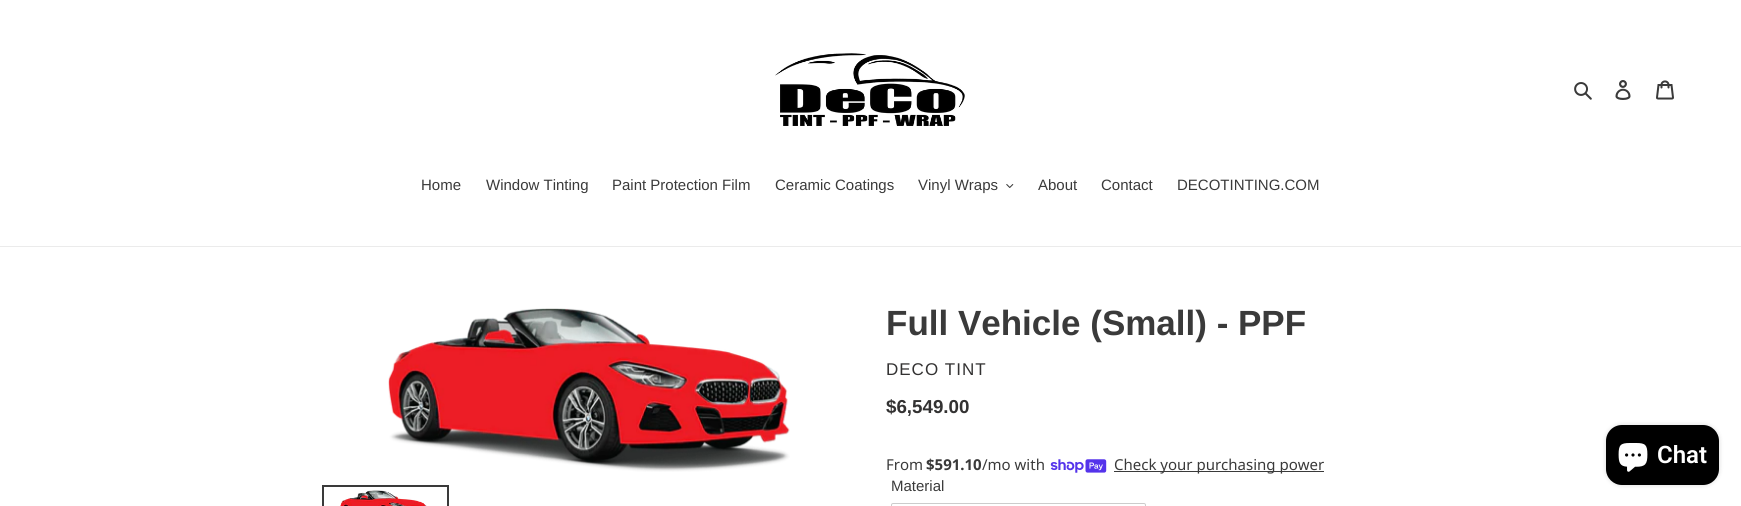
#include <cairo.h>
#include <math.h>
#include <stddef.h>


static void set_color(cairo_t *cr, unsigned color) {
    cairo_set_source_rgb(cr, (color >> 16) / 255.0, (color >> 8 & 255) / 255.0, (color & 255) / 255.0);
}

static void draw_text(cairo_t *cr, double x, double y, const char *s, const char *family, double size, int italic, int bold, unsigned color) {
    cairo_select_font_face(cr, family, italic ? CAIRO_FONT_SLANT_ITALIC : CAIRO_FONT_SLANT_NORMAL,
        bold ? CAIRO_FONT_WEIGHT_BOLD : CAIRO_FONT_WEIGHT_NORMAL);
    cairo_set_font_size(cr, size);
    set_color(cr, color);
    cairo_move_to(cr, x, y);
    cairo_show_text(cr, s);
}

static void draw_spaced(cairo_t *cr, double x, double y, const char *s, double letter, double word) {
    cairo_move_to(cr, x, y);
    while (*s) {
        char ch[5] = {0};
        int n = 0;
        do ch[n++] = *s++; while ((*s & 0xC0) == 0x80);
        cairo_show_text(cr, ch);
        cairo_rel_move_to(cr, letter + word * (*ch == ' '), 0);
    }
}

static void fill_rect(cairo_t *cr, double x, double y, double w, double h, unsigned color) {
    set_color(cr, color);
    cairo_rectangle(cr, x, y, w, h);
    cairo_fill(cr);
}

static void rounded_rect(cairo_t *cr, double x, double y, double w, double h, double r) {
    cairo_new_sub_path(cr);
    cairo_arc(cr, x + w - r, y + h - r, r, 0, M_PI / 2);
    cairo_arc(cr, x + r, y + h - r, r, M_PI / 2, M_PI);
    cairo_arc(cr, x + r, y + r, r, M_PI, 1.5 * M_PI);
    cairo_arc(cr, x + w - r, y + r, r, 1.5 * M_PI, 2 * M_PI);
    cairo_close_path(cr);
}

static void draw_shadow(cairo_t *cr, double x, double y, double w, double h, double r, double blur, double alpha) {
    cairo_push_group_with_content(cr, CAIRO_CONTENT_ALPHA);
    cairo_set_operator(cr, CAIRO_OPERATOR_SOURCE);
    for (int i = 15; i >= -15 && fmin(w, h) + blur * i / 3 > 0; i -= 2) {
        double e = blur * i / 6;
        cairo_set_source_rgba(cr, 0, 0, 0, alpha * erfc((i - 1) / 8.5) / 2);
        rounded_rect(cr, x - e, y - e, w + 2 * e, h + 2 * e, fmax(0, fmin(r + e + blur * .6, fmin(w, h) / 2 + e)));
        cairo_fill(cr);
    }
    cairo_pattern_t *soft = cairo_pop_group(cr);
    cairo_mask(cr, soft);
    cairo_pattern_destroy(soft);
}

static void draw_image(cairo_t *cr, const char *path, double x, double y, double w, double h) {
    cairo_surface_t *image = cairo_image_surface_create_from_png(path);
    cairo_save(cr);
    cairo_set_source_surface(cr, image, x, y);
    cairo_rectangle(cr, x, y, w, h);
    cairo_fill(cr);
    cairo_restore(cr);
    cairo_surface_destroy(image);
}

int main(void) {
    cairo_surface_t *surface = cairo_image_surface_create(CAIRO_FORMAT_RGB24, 1741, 506);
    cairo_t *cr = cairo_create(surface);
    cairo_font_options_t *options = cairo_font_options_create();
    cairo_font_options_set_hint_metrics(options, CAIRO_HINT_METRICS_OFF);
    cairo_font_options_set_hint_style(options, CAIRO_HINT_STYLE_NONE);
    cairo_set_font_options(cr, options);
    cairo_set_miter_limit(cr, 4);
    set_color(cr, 0xFFFFFF);
    cairo_paint(cr);
    draw_image(cr, "assets/img1.png", 775, 53, 190, 73);
    draw_image(cr, "assets/img2.png", 1574, 82, 18, 18);
    draw_image(cr, "assets/img3.png", 1615, 80, 16, 20);
    draw_image(cr, "assets/img4.png", 1656, 80, 18, 20);
    fill_rect(cr, 0, 246, 1741, 1, 0xEBEBEB);
    draw_text(cr, 421, 190, "Home", "Liberation Sans", 15, 0, 0, 0x3A3A3A);
    draw_text(cr, 486, 190, "Window Tinting", "Liberation Sans", 15, 0, 0, 0x3A3A3A);
    draw_text(cr, 612, 190, "Paint Protection Film", "Liberation Sans", 15, 0, 0, 0x3A3A3A);
    draw_text(cr, 775, 190, "Ceramic Coatings", "Liberation Sans", 15, 0, 0, 0x3A3A3A);
    draw_text(cr, 918, 190, "Vinyl Wraps", "Liberation Sans", 15, 0, 0, 0x3A3A3A);
    draw_image(cr, "assets/img5.png", 1006, 184, 8, 4);
    draw_text(cr, 1038, 190, "About", "Liberation Sans", 15, 0, 0, 0x3A3A3A);
    draw_text(cr, 1101, 190, "Contact", "Liberation Sans", 15, 0, 0, 0x3A3A3A);
    draw_text(cr, 1177, 190, "DECOTINTING.COM", "Liberation Sans", 15, 0, 0, 0x3A3A3A);
    draw_image(cr, "assets/img6.png", 388, 308, 402, 164);
    cairo_rectangle(cr, 323, 486, 125, 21);
    cairo_stroke(cr);
    draw_image(cr, "assets/img7.png", 340, 490, 87, 16);
    draw_text(cr, 886, 335, "Full Vehicle (Small) - PPF", "Liberation Sans", 35, 0, 1, 0x3A3A3A);
    cairo_select_font_face(cr, "Liberation Sans", CAIRO_FONT_SLANT_NORMAL, CAIRO_FONT_WEIGHT_NORMAL);
    cairo_set_font_size(cr, 17);
    set_color(cr, 0x333232);
    draw_spaced(cr, 886, 375, "DECO TINT", 1, 0);
    draw_text(cr, 886, 413, "$6,549.00", "Liberation Sans", 18.75, 0, 1, 0x333232);
    draw_text(cr, 886, 470, "From", "Noto Sans", 15, 0, 0, 0x3A3A3A);
    draw_text(cr, 926, 470, "$591.10", "Noto Sans", 15, 0, 1, 0x3A3A3A);
    draw_text(cr, 982, 470, "/mo with", "Noto Sans", 15, 0, 0, 0x3A3A3A);
    draw_image(cr, "assets/img8.png", 1050, 459, 57, 14);
    fill_rect(cr, 1114, 471, 210, 1, 0x3A3A3A);
    draw_text(cr, 1114, 470, "Check your purchasing power", "Noto Sans", 15, 0, 0, 0x3A3A3A);
    draw_text(cr, 891, 491, "Material", "Liberation Sans", 15, 0, 0, 0x3A3A3A);
    rounded_rect(cr, 891.5, 503.5, 254, 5, 1.5);
    set_color(cr, 0xCCCCCC);
    cairo_set_line_width(cr, 1);
    cairo_stroke(cr);
    set_color(cr, 0x000000);
    draw_shadow(cr, 1606, 425, 113, 60, 16, 2.5, 0.15);
    set_color(cr, 0x000000);
    rounded_rect(cr, 1606, 425, 113, 60, 16);
    cairo_fill(cr);
    draw_image(cr, "assets/img9.png", 1618, 443, 30, 29);
    draw_text(cr, 1657, 463, "Chat", "Roboto SemiBold", 24, 0, 0, 0xFFFFFF);
    cairo_surface_write_to_png(surface, "output.png");
    cairo_font_options_destroy(options);
    cairo_destroy(cr);
    cairo_surface_destroy(surface);
    return 0;
}
